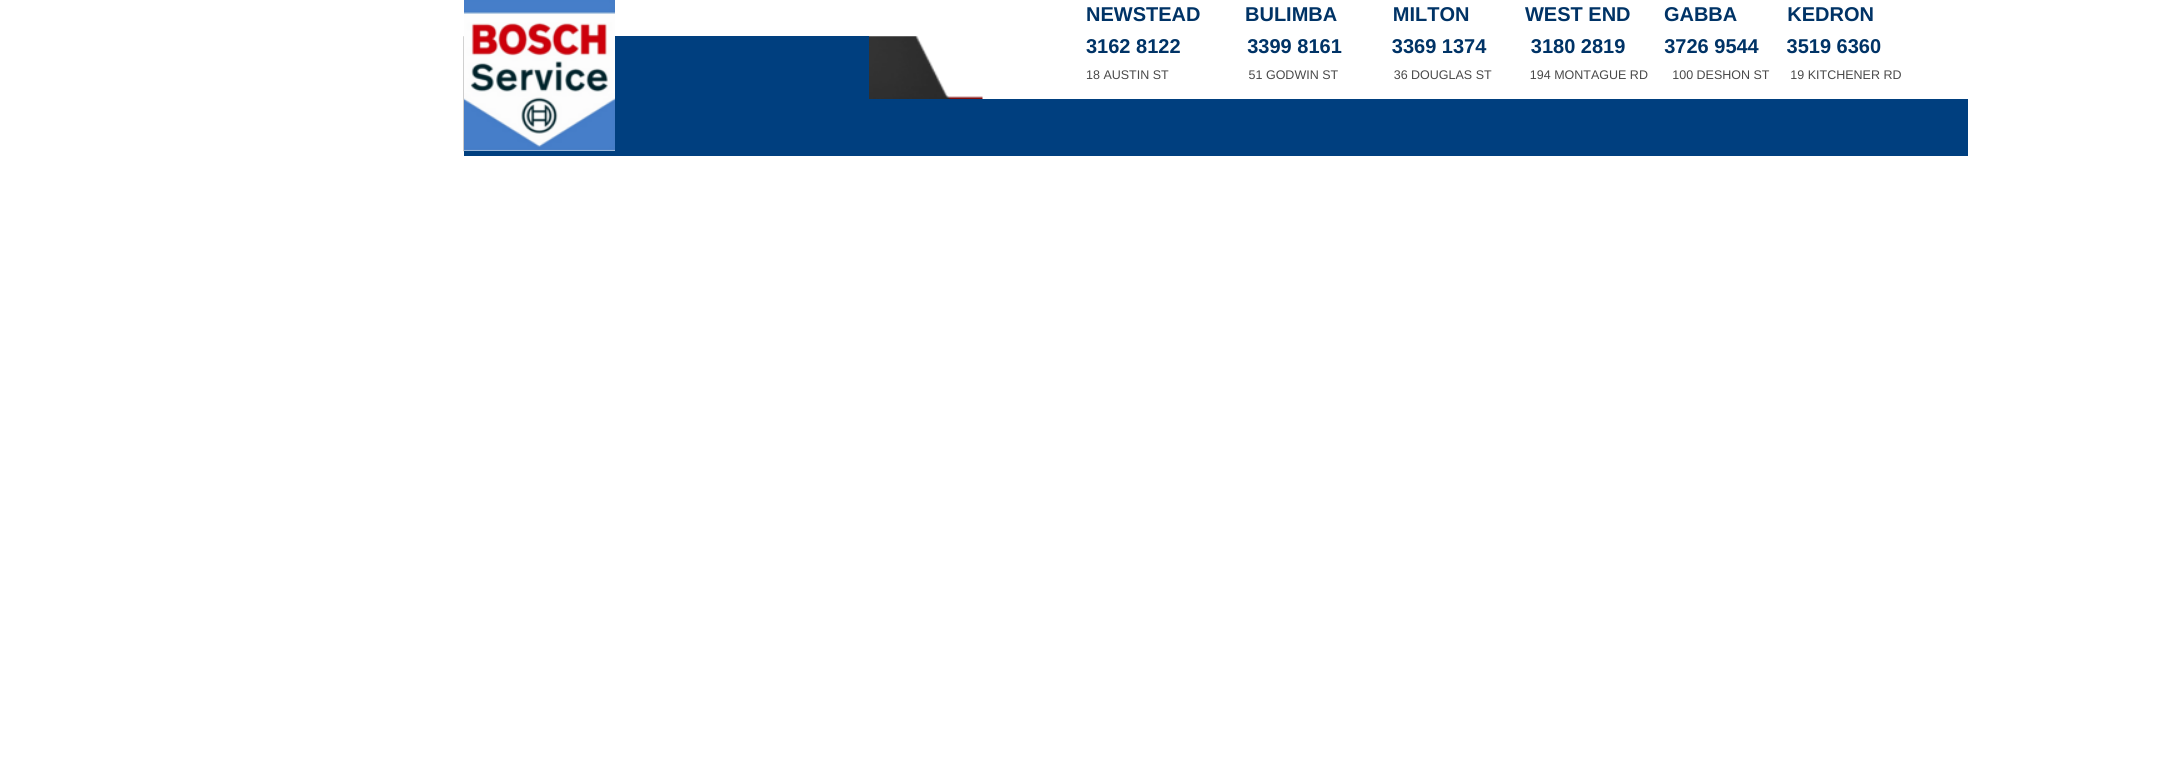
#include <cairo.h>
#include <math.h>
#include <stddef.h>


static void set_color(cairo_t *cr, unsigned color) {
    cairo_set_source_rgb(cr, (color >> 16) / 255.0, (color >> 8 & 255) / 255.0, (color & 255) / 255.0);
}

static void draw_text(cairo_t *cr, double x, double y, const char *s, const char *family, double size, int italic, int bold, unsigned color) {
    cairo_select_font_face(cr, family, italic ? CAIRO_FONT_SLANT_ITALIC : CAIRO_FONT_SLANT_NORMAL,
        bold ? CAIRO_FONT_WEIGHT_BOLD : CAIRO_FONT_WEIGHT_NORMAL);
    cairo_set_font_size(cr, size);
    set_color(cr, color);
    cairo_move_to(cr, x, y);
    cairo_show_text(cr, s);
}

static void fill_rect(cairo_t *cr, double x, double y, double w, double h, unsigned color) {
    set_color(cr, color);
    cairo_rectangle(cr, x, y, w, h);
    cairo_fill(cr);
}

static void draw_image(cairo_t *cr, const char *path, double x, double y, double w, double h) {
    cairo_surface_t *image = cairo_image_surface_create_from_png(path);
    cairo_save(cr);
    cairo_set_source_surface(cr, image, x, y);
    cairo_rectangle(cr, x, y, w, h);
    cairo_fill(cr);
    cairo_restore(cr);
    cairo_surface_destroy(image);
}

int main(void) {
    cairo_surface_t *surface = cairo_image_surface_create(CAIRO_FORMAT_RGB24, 2165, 775);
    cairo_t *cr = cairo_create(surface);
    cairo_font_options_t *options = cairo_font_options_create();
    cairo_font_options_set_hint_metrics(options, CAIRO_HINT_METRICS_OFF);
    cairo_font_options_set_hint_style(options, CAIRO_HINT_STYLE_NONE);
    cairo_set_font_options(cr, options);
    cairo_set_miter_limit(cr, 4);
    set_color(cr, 0xFFFFFF);
    cairo_paint(cr);
    draw_image(cr, "assets/img2.png", 463, 36, 520, 116);
    fill_rect(cr, 464, 36, 405, 63, 0x003F7F);
    fill_rect(cr, 464, 99, 1504, 57, 0x003F7F);
    draw_image(cr, "assets/img1.png", 464, 0, 151, 151);
    draw_text(cr, 1086, 21, "NEWSTEAD", "Liberation Sans", 20, 0, 1, 0x003366);
    draw_text(cr, 1245, 21, "BULIMBA          MILTON          WEST END      GABBA         KEDRON", "Liberation Sans", 20, 0, 1, 0x003366);
    draw_text(cr, 1086, 53, "3162 8122            3399 8161         3369 1374        3180 2819       3726 9544     3519 6360", "Liberation Sans", 20, 0, 1, 0x003366);
    draw_text(cr, 1086, 79, "18 AUSTIN ST                       51 GODWIN ST                36 DOUGLAS ST           194 MONTAGUE RD       100 DESHON ST      19 KITCHENER RD", "Liberation Sans", 12.5, 0, 0, 0x494949);
    cairo_surface_write_to_png(surface, "output.png");
    cairo_font_options_destroy(options);
    cairo_destroy(cr);
    cairo_surface_destroy(surface);
    return 0;
}
